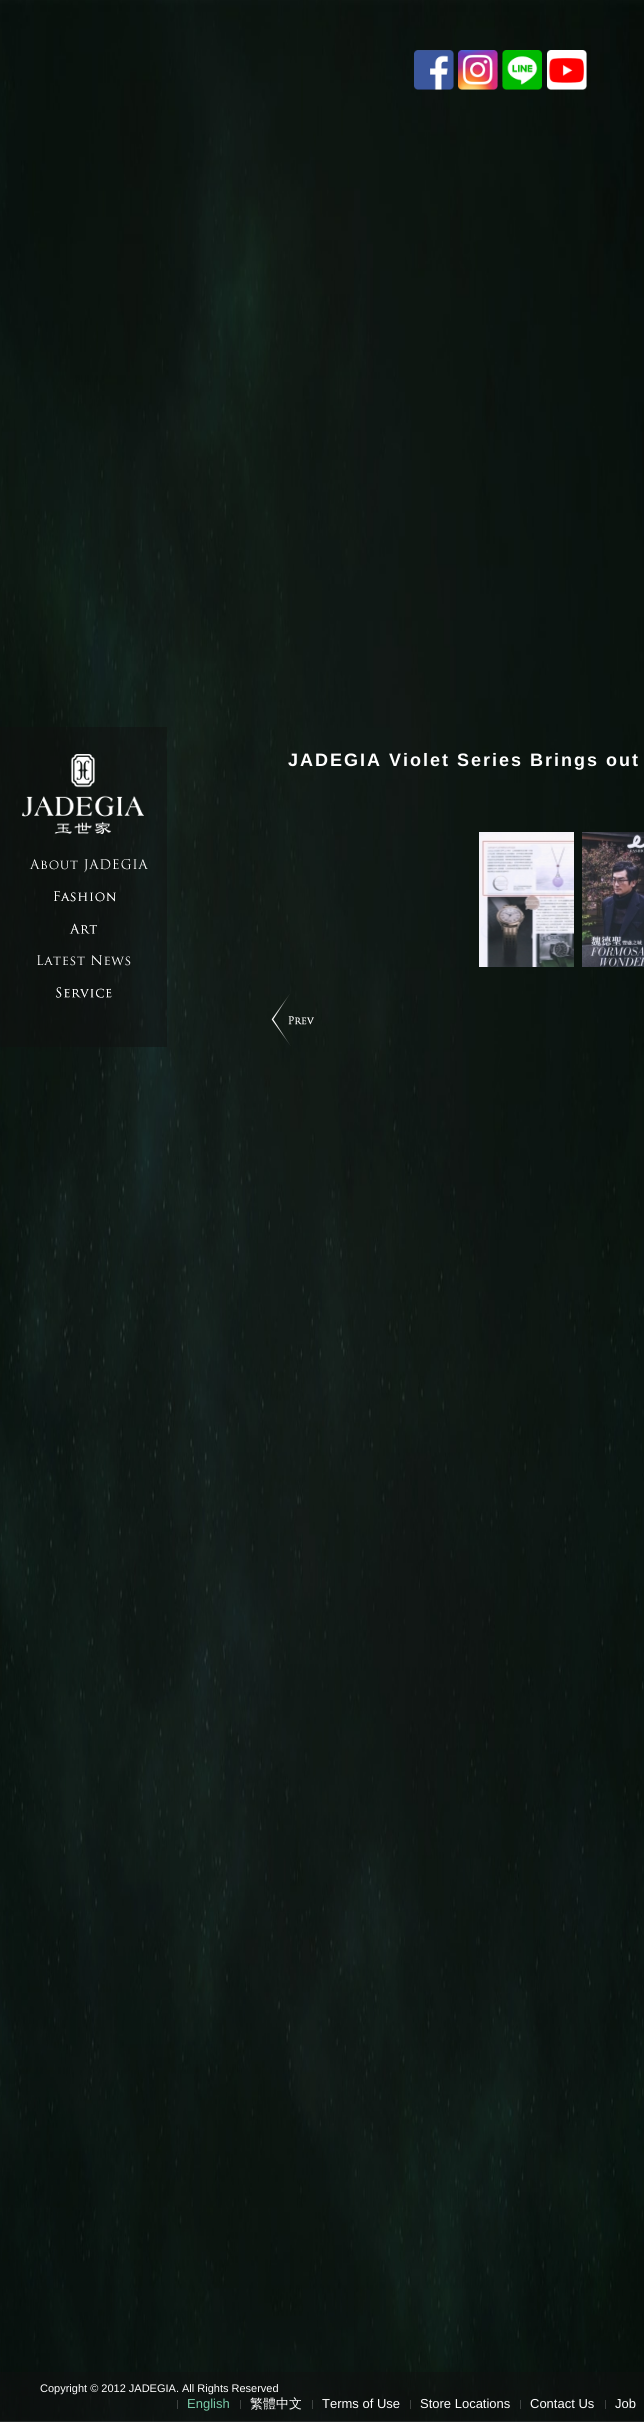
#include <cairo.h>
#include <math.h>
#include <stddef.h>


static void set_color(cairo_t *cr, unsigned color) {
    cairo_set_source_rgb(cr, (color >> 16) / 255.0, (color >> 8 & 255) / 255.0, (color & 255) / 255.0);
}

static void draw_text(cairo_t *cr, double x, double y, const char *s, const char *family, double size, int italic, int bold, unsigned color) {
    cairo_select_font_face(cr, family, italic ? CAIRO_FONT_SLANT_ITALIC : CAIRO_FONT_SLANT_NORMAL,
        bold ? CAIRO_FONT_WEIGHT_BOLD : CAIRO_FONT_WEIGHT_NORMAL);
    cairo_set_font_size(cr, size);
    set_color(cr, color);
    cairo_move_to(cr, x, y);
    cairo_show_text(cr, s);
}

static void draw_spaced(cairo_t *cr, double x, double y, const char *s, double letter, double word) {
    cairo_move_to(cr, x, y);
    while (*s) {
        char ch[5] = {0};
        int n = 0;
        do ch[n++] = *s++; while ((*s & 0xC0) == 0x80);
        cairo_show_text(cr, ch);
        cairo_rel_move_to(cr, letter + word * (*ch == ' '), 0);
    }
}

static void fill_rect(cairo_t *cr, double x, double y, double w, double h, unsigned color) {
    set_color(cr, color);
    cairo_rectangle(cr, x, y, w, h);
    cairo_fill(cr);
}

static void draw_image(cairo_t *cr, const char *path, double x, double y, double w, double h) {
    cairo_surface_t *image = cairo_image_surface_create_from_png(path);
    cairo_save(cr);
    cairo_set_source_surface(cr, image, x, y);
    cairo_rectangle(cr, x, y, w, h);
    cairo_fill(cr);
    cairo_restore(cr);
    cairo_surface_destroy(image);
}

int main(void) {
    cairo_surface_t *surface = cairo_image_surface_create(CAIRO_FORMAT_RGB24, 644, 2422);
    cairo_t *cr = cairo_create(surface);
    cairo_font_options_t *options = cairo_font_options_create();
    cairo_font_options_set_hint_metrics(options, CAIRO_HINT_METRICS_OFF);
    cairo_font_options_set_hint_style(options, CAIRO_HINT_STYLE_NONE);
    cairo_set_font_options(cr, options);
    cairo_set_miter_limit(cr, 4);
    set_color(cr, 0xFFFFFF);
    cairo_paint(cr);
    draw_image(cr, "assets/img1.png", 0, 0, 644, 2422);
    draw_image(cr, "assets/img2.png", 414, 50, 40, 40);
    draw_image(cr, "assets/img3.png", 458, 50, 40, 40);
    draw_image(cr, "assets/img4.png", 502, 50, 40, 40);
    draw_image(cr, "assets/img5.png", 547, 50, 40, 40);
    cairo_set_source_rgba(cr, 0.063, 0.063, 0.063, 0.5);
    cairo_rectangle(cr, 0, 727, 167, 320);
    cairo_fill(cr);
    draw_image(cr, "assets/img6.png", 22, 754, 122, 80);
    draw_image(cr, "assets/img7.png", 29, 859, 119, 14);
    draw_image(cr, "assets/img8.png", 54, 891, 62, 11);
    draw_image(cr, "assets/img9.png", 69, 923, 28, 11);
    draw_image(cr, "assets/img10.png", 37, 955, 94, 11);
    draw_image(cr, "assets/img11.png", 56, 987, 56, 11);
    cairo_select_font_face(cr, "Liberation Sans", CAIRO_FONT_SLANT_NORMAL, CAIRO_FONT_WEIGHT_BOLD);
    cairo_set_font_size(cr, 18);
    set_color(cr, 0xFFFFFF);
    draw_spaced(cr, 288, 766, "JADEGIA Violet Series Brings out", 2, 0);
    draw_image(cr, "assets/img12.png", 479, 832, 95, 135);
    draw_image(cr, "assets/img13.png", 582, 832, 62, 135);
    draw_image(cr, "assets/img14.png", 271, 994, 43, 52);
    cairo_set_source_rgba(cr, 0.063, 0.063, 0.063, 0.5);
    cairo_rectangle(cr, 0, 2372, 644, 50);
    cairo_fill(cr);
    draw_text(cr, 40, 2392, "Copyright © 2012 JADEGIA. All Rights Reserved", "Liberation Sans", 11, 0, 0, 0xFFFFFF);
    fill_rect(cr, 177, 2400, 1, 9, 0x3D4240);
    draw_text(cr, 187, 2408, "English", "Liberation Sans", 13, 0, 0, 0x79C9A7);
    fill_rect(cr, 240, 2400, 1, 9, 0x3D413F);
    draw_text(cr, 250, 2408, "繁體中文", "WenQuanYi Zen Hei Medium", 13, 0, 0, 0xFFFFFF);
    fill_rect(cr, 312, 2400, 1, 9, 0x3E4341);
    draw_text(cr, 322, 2408, "Terms of Use", "Liberation Sans", 13, 0, 0, 0xFFFFFF);
    fill_rect(cr, 410, 2400, 1, 9, 0x3D413F);
    draw_text(cr, 420, 2408, "Store Locations", "Liberation Sans", 13, 0, 0, 0xFFFFFF);
    fill_rect(cr, 520, 2400, 1, 9, 0x3D4240);
    draw_text(cr, 530, 2408, "Contact Us", "Liberation Sans", 13, 0, 0, 0xFFFFFF);
    fill_rect(cr, 605, 2400, 1, 9, 0x3D403F);
    draw_text(cr, 615, 2408, "Job", "Liberation Sans", 13, 0, 0, 0xFFFFFF);
    cairo_surface_write_to_png(surface, "output.png");
    cairo_font_options_destroy(options);
    cairo_destroy(cr);
    cairo_surface_destroy(surface);
    return 0;
}
